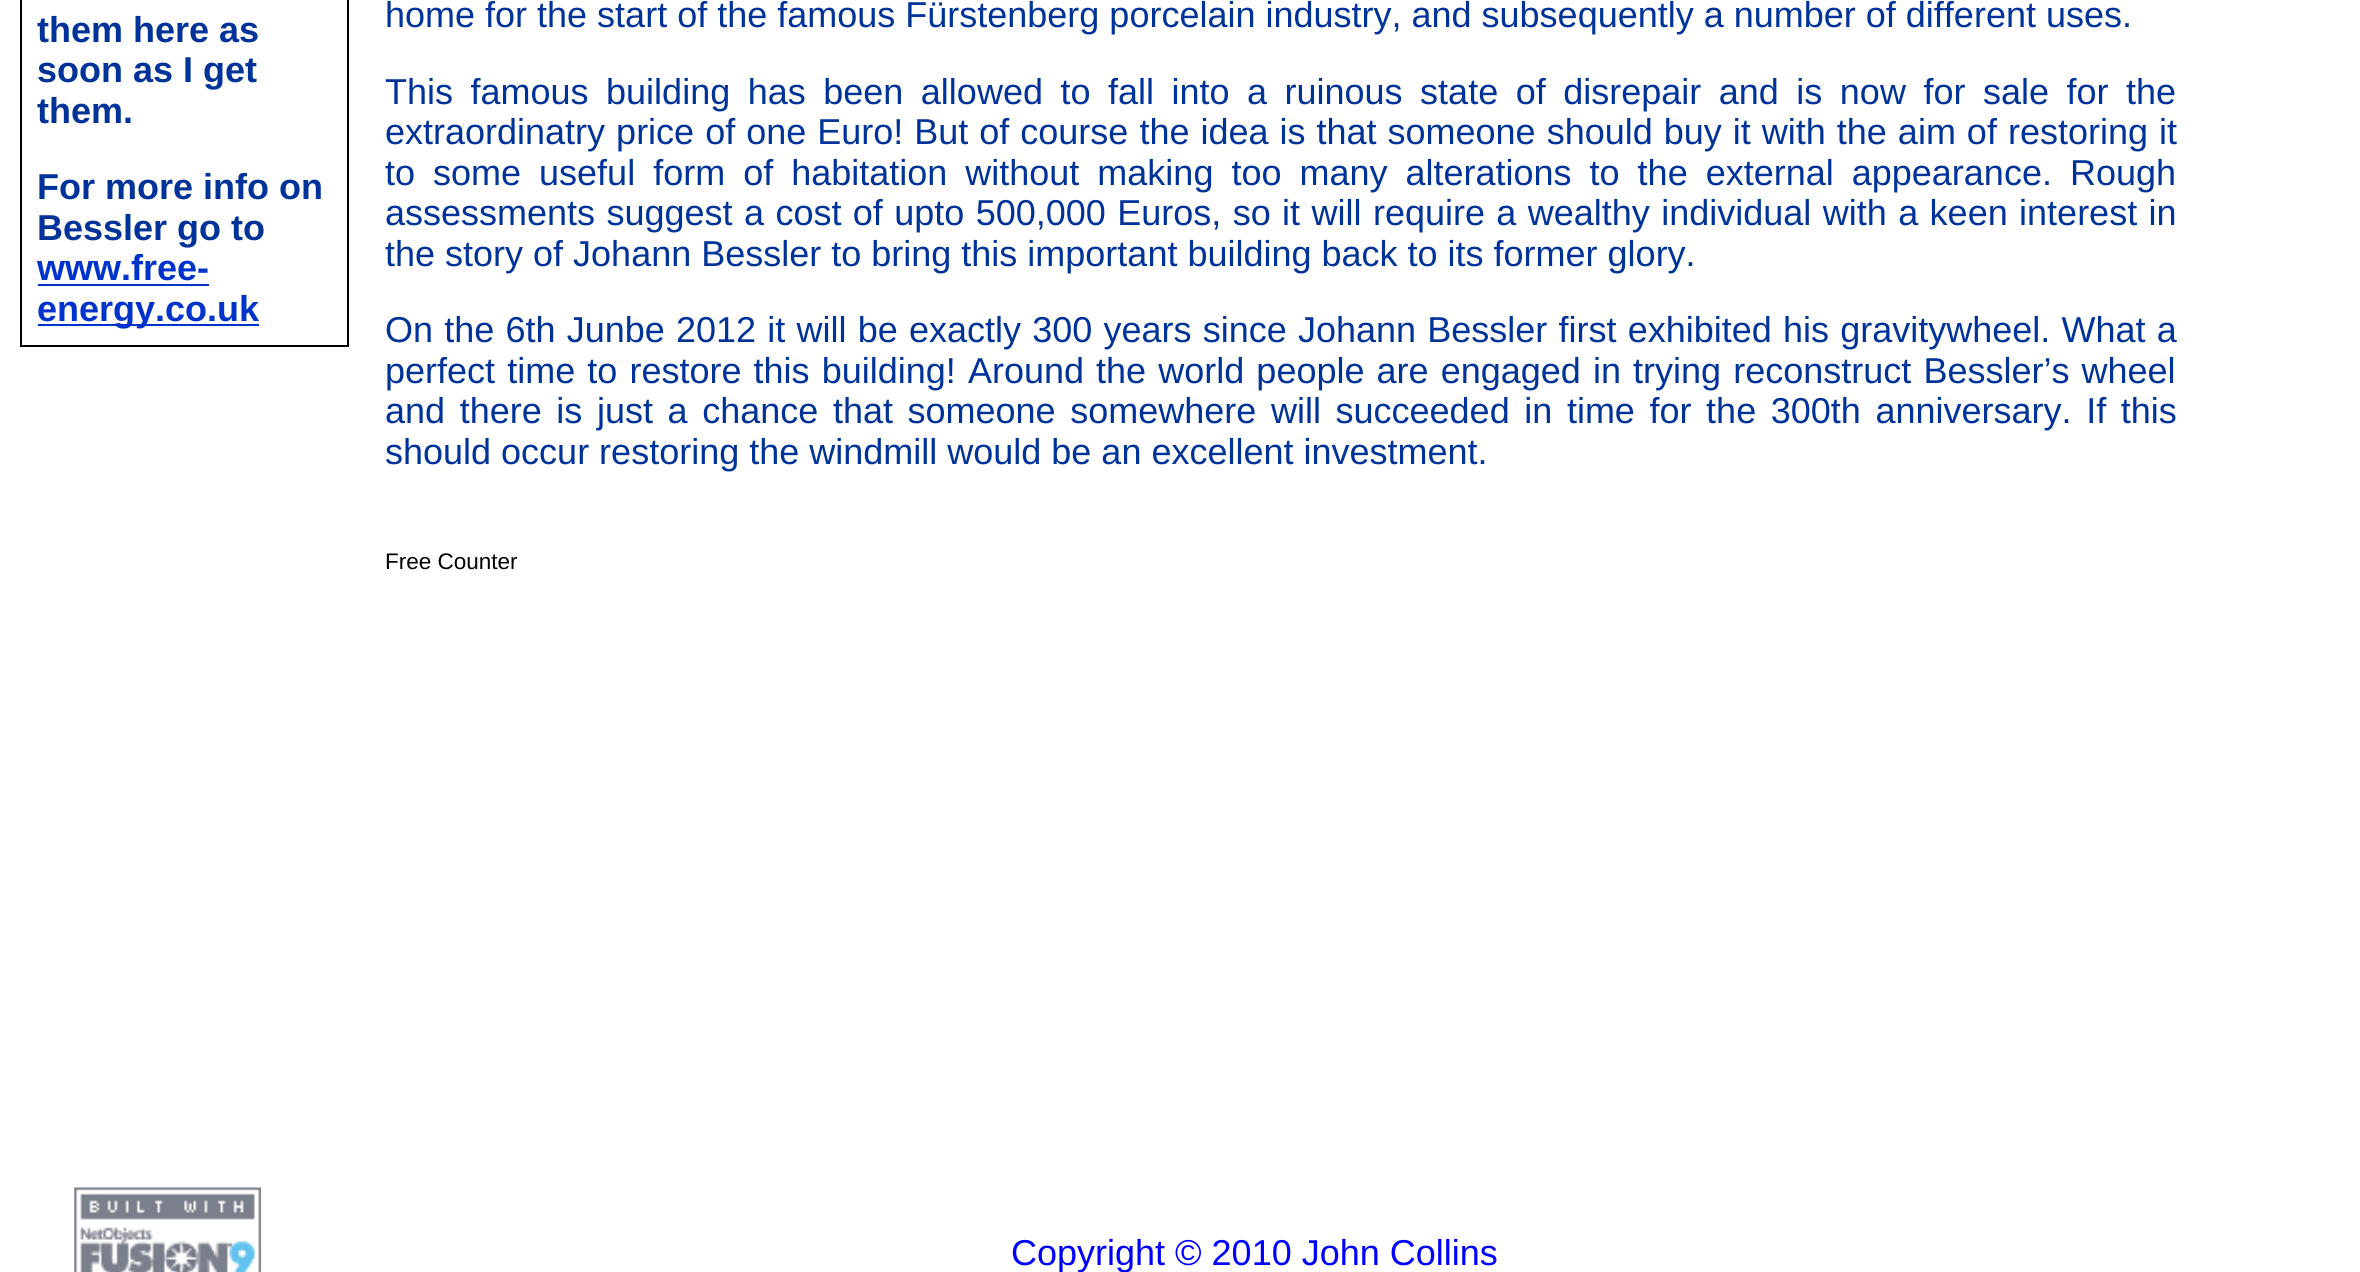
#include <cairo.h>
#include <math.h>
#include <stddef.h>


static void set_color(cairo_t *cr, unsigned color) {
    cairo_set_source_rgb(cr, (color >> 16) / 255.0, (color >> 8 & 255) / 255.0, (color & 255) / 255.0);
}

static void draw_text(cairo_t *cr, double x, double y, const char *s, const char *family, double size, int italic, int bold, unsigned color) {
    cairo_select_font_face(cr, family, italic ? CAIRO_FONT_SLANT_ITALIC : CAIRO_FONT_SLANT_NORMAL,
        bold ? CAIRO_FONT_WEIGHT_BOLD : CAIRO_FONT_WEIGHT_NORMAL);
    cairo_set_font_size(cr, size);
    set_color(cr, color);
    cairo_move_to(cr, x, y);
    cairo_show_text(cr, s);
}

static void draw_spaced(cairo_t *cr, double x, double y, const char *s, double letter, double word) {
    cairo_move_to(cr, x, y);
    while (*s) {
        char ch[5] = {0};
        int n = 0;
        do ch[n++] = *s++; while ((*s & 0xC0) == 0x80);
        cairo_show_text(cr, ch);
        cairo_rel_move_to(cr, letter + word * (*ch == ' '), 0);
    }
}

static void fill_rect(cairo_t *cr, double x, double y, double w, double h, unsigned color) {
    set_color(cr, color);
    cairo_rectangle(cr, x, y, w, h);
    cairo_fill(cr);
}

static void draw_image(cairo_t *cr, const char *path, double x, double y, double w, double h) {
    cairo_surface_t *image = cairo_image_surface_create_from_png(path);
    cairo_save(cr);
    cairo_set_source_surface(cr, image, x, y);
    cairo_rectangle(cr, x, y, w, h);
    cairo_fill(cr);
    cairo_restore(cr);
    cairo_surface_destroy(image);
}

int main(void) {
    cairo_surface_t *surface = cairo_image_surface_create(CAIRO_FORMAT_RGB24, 2360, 1272);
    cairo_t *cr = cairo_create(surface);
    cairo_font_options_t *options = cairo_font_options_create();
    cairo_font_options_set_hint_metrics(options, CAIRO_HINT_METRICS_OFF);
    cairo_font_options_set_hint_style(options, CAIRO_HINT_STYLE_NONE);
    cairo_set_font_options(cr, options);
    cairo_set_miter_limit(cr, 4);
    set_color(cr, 0xFFFFFF);
    cairo_paint(cr);
    cairo_rectangle(cr, 21, -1, 327, 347);
    set_color(cr, 0x000000);
    cairo_stroke(cr);
    draw_text(cr, 37, 42, "them here as", "Liberation Sans", 36, 0, 1, 0x003399);
    draw_text(cr, 37, 82, "soon as I get", "Liberation Sans", 36, 0, 1, 0x003399);
    draw_text(cr, 37, 123, "them.", "Liberation Sans", 36, 0, 1, 0x003399);
    draw_text(cr, 37, 199, "For more info on", "Liberation Sans", 36, 0, 1, 0x003399);
    draw_text(cr, 37, 240, "Bessler go to", "Liberation Sans", 36, 0, 1, 0x003399);
    draw_text(cr, 37, 280, "www.free-", "Liberation Sans", 36, 0, 1, 0x0033CC);
    fill_rect(cr, 38, 284, 171, 2, 0x0033CC);
    fill_rect(cr, 38, 324, 221, 2, 0x0033CC);
    draw_text(cr, 37, 321, "energy.co.uk", "Liberation Sans", 36, 0, 1, 0x0033CC);
    draw_text(cr, 385, 27, "home for the start of the famous Fürstenberg porcelain industry, and subsequently a number of different uses.", "Liberation Sans", 36, 0, 0, 0x003399);
    draw_spaced(cr, 385, 104, "This famous building has been allowed to fall into a ruinous state of disrepair and is now for sale for the", 0, 7.5);
    draw_spaced(cr, 385, 144, "extraordinatry price of one Euro! But of course the idea is that someone should buy it with the aim of restoring it", 0, 1);
    draw_spaced(cr, 385, 185, "to some useful form of habitation without making too many alterations to the external appearance. Rough", 0, 8);
    draw_spaced(cr, 385, 225, "assessments suggest a cost of upto 500,000 Euros, so it will require a wealthy individual with a keen interest in", 0, 1.4);
    draw_text(cr, 385, 266, "the story of Johann Bessler to bring this important building back to its former glory.", "Liberation Sans", 36, 0, 0, 0x003399);
    draw_spaced(cr, 385, 342, "On the 6th Junbe 2012 it will be exactly 300 years since Johann Bessler first exhibited his gravitywheel. What a", 0, 1.2);
    draw_spaced(cr, 385, 383, "perfect time to restore this building! Around the world people are engaged in trying reconstruct Bessler’s wheel", 0, 2.1);
    draw_spaced(cr, 385, 423, "and there is just a chance that someone somewhere will succeeded in time for the 300th anniversary. If this", 0, 4.6);
    draw_text(cr, 385, 464, "should occur restoring the windmill would be an excellent investment.", "Liberation Sans", 36, 0, 0, 0x003399);
    draw_text(cr, 385, 569, "Free Counter", "Liberation Sans", 22.5, 0, 0, 0x000000);
    draw_image(cr, "assets/img1.png", 74, 1187, 187, 85);
    draw_text(cr, 1011, 1265, "Copyright © 2010 John Collins", "Liberation Sans", 36, 0, 0, 0x0000FF);
    cairo_surface_write_to_png(surface, "output.png");
    cairo_font_options_destroy(options);
    cairo_destroy(cr);
    cairo_surface_destroy(surface);
    return 0;
}
